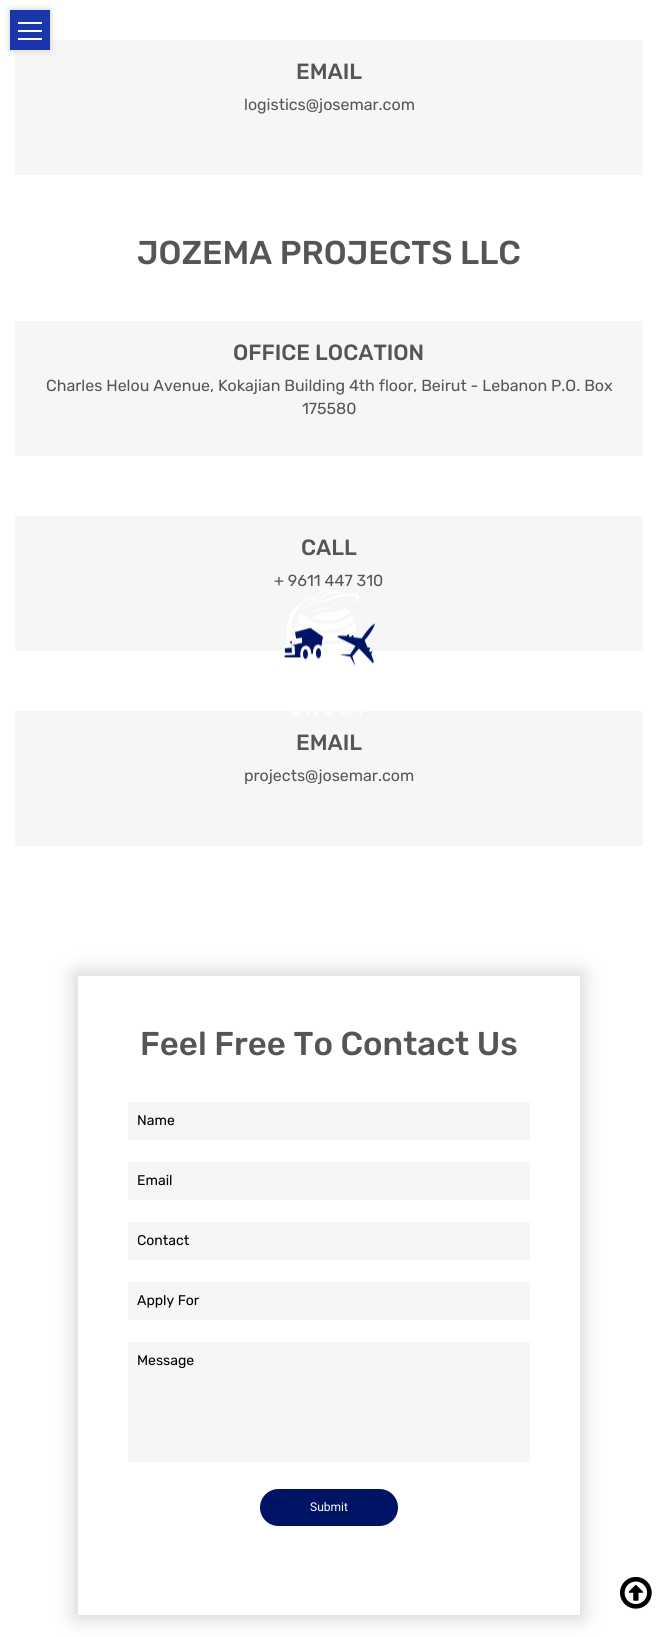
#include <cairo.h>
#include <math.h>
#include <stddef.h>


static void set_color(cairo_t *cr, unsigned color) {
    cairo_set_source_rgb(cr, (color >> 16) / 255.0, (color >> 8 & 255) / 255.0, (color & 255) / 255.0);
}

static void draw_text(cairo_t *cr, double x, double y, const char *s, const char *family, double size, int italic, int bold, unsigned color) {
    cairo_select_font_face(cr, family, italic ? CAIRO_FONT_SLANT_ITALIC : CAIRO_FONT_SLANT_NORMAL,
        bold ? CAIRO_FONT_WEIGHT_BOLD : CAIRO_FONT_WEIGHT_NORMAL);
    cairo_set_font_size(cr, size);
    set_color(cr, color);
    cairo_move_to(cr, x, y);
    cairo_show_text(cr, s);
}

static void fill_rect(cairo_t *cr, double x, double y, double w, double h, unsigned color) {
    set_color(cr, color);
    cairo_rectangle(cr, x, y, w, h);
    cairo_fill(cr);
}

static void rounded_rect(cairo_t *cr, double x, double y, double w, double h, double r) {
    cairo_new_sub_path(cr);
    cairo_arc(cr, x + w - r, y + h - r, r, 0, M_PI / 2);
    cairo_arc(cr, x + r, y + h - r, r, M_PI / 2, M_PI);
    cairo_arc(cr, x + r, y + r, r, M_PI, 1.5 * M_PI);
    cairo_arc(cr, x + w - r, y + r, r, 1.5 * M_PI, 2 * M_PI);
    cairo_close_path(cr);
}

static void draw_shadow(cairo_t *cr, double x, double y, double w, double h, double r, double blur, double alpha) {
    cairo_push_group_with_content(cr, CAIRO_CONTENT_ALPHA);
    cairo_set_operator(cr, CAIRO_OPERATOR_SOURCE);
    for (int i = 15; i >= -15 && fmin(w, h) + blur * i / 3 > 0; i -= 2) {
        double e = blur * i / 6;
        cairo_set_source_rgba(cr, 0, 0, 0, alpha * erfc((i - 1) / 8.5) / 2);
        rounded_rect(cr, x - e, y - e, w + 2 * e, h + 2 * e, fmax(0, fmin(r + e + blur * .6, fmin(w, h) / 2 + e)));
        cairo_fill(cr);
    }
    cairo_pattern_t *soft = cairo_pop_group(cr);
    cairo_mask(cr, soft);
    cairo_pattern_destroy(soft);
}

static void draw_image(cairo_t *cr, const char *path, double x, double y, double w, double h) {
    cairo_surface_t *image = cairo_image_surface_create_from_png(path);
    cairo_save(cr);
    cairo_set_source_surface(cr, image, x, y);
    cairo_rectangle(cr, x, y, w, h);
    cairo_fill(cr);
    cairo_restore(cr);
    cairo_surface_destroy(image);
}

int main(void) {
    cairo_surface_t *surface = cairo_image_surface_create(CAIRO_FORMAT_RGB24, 658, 1637);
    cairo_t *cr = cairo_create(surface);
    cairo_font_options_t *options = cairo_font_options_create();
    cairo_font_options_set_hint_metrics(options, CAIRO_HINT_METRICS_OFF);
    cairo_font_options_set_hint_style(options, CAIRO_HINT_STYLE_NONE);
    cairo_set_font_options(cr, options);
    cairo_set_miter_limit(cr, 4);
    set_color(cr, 0xFFFFFF);
    cairo_paint(cr);
    fill_rect(cr, 15, 40, 628, 135, 0xF6F6F6);
    set_color(cr, 0xCCCCCC);
    draw_shadow(cr, 10, 10, 40, 40, 0, 3.5, 1);
    fill_rect(cr, 10, 10, 40, 40, 0x1936AC);
    fill_rect(cr, 18, 22, 24, 2, 0xFFFFFF);
    fill_rect(cr, 18, 30, 24, 2, 0xFFFFFF);
    fill_rect(cr, 18, 38, 24, 2, 0xFFFFFF);
    draw_text(cr, 296, 79, "EMAIL", "Rubik Medium", 22, 0, 0, 0x555555);
    draw_text(cr, 244, 110, "logistics@josemar.com", "Rubik", 16, 0, 0, 0x555555);
    draw_text(cr, 137, 264, "JOZEMA PROJECTS LLC", "Rubik Medium", 33, 0, 0, 0x555555);
    fill_rect(cr, 15, 321, 628, 135, 0xF6F6F6);
    draw_text(cr, 233, 360, "OFFICE LOCATION", "Rubik Medium", 22, 0, 0, 0x555555);
    draw_text(cr, 46, 391, "Charles Helou Avenue, Kokajian Building 4th floor, Beirut - Lebanon P.O. Box", "Rubik", 16, 0, 0, 0x555555);
    draw_text(cr, 302, 414, "175580", "Rubik", 16, 0, 0, 0x555555);
    fill_rect(cr, 15, 516, 628, 135, 0xF6F6F6);
    draw_text(cr, 301, 555, "CALL", "Rubik Medium", 22, 0, 0, 0x555555);
    draw_text(cr, 274, 586, "+ 9611 447 310", "Rubik", 16, 0, 0, 0x555555);
    fill_rect(cr, 15, 711, 628, 135, 0xF6F6F6);
    draw_text(cr, 296, 750, "EMAIL", "Rubik Medium", 22, 0, 0, 0x555555);
    draw_text(cr, 244, 781, "projects@josemar.com", "Rubik", 16, 0, 0, 0x555555);
    cairo_save(cr);
    cairo_set_fill_rule(cr, CAIRO_FILL_RULE_EVEN_ODD);
    cairo_new_path(cr);
    cairo_move_to(cr, 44, 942);
    cairo_line_to(cr, 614, 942);
    cairo_line_to(cr, 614, 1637);
    cairo_line_to(cr, 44, 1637);
    cairo_close_path(cr);
    cairo_move_to(cr, 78, 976);
    cairo_line_to(cr, 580, 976);
    cairo_line_to(cr, 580, 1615);
    cairo_line_to(cr, 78, 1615);
    cairo_close_path(cr);
    cairo_clip(cr);
    set_color(cr, 0xCCCCCC);
    draw_shadow(cr, 75, 973, 508, 645, 0, 10, 0.85);
    cairo_restore(cr);
    draw_text(cr, 140, 1055, "Feel Free To Contact Us", "Rubik Medium", 33, 0, 0, 0x555555);
    fill_rect(cr, 128, 1102, 402, 38, 0xF6F6F6);
    draw_text(cr, 137, 1125, "Name", "Rubik", 14, 0, 0, 0x000000);
    fill_rect(cr, 128, 1162, 402, 38, 0xF6F6F6);
    draw_text(cr, 137, 1185, "Email", "Rubik", 14, 0, 0, 0x000000);
    fill_rect(cr, 128, 1222, 402, 38, 0xF6F6F6);
    draw_text(cr, 137, 1245, "Contact", "Rubik", 14, 0, 0, 0x000000);
    fill_rect(cr, 128, 1282, 402, 38, 0xF6F6F6);
    draw_text(cr, 137, 1305, "Apply For", "Rubik", 14, 0, 0, 0x000000);
    fill_rect(cr, 128, 1342, 402, 120, 0xF6F6F6);
    draw_text(cr, 137, 1365, "Message", "Rubik", 14, 0, 0, 0x000000);
    set_color(cr, 0x001465);
    rounded_rect(cr, 260, 1489, 138, 37, 18.5);
    cairo_fill(cr);
    draw_text(cr, 310, 1511, "Submit", "Roboto", 12, 0, 0, 0xFFFFFF);
    draw_image(cr, "assets/img1.png", 620, 1576, 32, 33);
    draw_image(cr, "assets/img2.png", 282, 589, 94, 126);
    cairo_surface_write_to_png(surface, "output.png");
    cairo_font_options_destroy(options);
    cairo_destroy(cr);
    cairo_surface_destroy(surface);
    return 0;
}
